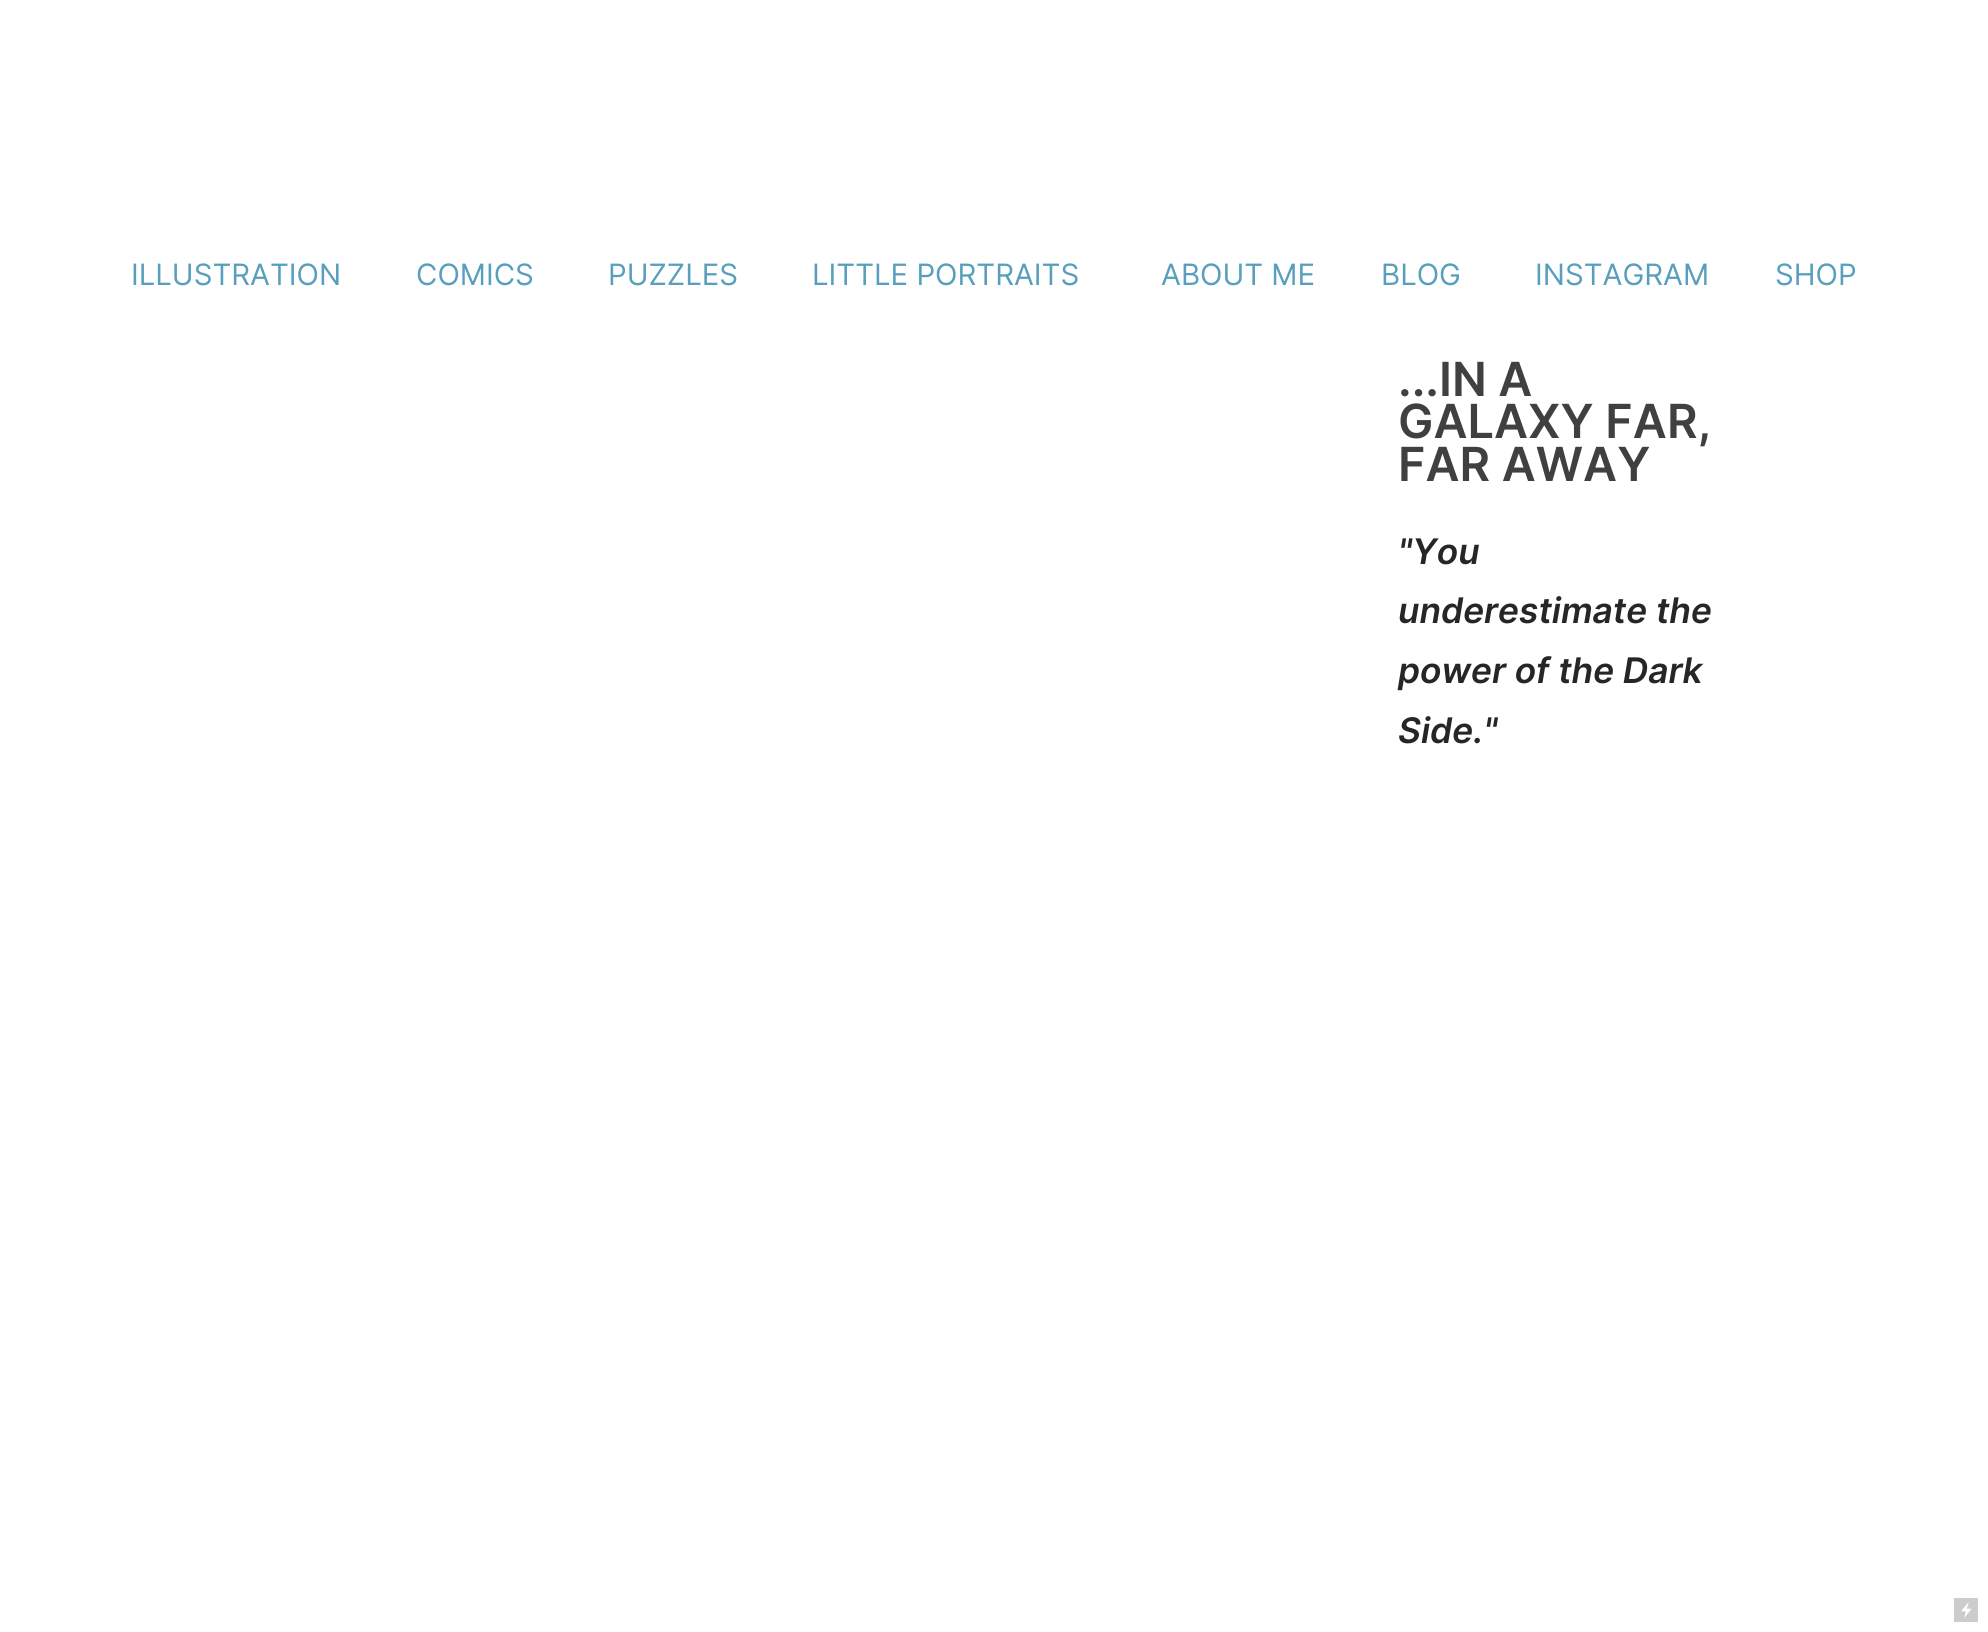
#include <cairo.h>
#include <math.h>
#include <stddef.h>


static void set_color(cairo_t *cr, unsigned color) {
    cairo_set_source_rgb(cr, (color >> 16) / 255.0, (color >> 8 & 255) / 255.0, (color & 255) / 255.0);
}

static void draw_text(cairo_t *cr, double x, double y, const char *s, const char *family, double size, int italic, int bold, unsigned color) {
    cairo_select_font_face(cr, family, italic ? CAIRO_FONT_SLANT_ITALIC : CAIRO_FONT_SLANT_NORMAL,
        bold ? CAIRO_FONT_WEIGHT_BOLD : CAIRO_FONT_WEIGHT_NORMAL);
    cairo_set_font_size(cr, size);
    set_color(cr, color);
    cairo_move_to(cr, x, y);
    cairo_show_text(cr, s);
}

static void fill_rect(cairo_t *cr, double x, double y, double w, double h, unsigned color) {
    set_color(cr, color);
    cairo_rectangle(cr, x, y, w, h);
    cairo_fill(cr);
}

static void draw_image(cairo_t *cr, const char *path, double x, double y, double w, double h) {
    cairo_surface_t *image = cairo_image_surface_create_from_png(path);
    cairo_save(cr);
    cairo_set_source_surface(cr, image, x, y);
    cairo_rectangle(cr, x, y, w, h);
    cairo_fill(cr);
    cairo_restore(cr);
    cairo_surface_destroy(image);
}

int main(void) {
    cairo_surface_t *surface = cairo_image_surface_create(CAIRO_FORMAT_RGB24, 1988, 1632);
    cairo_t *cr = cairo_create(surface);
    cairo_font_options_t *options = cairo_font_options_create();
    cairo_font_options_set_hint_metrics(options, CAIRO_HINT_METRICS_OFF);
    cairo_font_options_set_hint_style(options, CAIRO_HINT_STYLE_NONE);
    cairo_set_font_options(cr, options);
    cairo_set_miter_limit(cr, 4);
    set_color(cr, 0xFFFFFF);
    cairo_paint(cr);
    draw_text(cr, 131, 285, "ILLUSTRATION", "Inter", 29.4, 0, 0, 0x589FBD);
    draw_text(cr, 416, 285, "COMICS", "Inter", 29.4, 0, 0, 0x589FBD);
    draw_text(cr, 608, 285, "PUZZLES", "Inter", 29.4, 0, 0, 0x589FBD);
    draw_text(cr, 812, 285, "LITTLE PORTRAITS", "Inter", 29.4, 0, 0, 0x589FBD);
    draw_text(cr, 1161, 285, "ABOUT ME", "Inter", 29.4, 0, 0, 0x589FBD);
    draw_text(cr, 1381, 285, "BLOG", "Inter", 29.4, 0, 0, 0x589FBD);
    draw_text(cr, 1535, 285, "INSTAGRAM", "Inter", 29.4, 0, 0, 0x589FBD);
    draw_text(cr, 1775, 285, "SHOP", "Inter", 29.4, 0, 0, 0x589FBD);
    draw_text(cr, 1398, 396, "...IN A", "Inter SemiBold", 47, 0, 0, 0x404040);
    draw_text(cr, 1398, 438, "GALAXY FAR,", "Inter SemiBold", 47, 0, 0, 0x404040);
    draw_text(cr, 1398, 481, "FAR AWAY", "Inter SemiBold", 47, 0, 0, 0x404040);
    draw_text(cr, 1398, 564, "\"You", "Inter SemiBold", 35.25, 1, 0, 0x262626);
    draw_text(cr, 1398, 623, "underestimate the", "Inter SemiBold", 35.25, 1, 0, 0x262626);
    draw_text(cr, 1398, 683, "power of the Dark", "Inter SemiBold", 35.25, 1, 0, 0x262626);
    draw_text(cr, 1398, 743, "Side.\"", "Inter SemiBold", 35.25, 1, 0, 0x262626);
    fill_rect(cr, 1954, 1598, 24, 24, 0xCCCCCC);
    draw_image(cr, "assets/img1.png", 1961, 1602, 11, 16);
    cairo_surface_write_to_png(surface, "output.png");
    cairo_font_options_destroy(options);
    cairo_destroy(cr);
    cairo_surface_destroy(surface);
    return 0;
}
